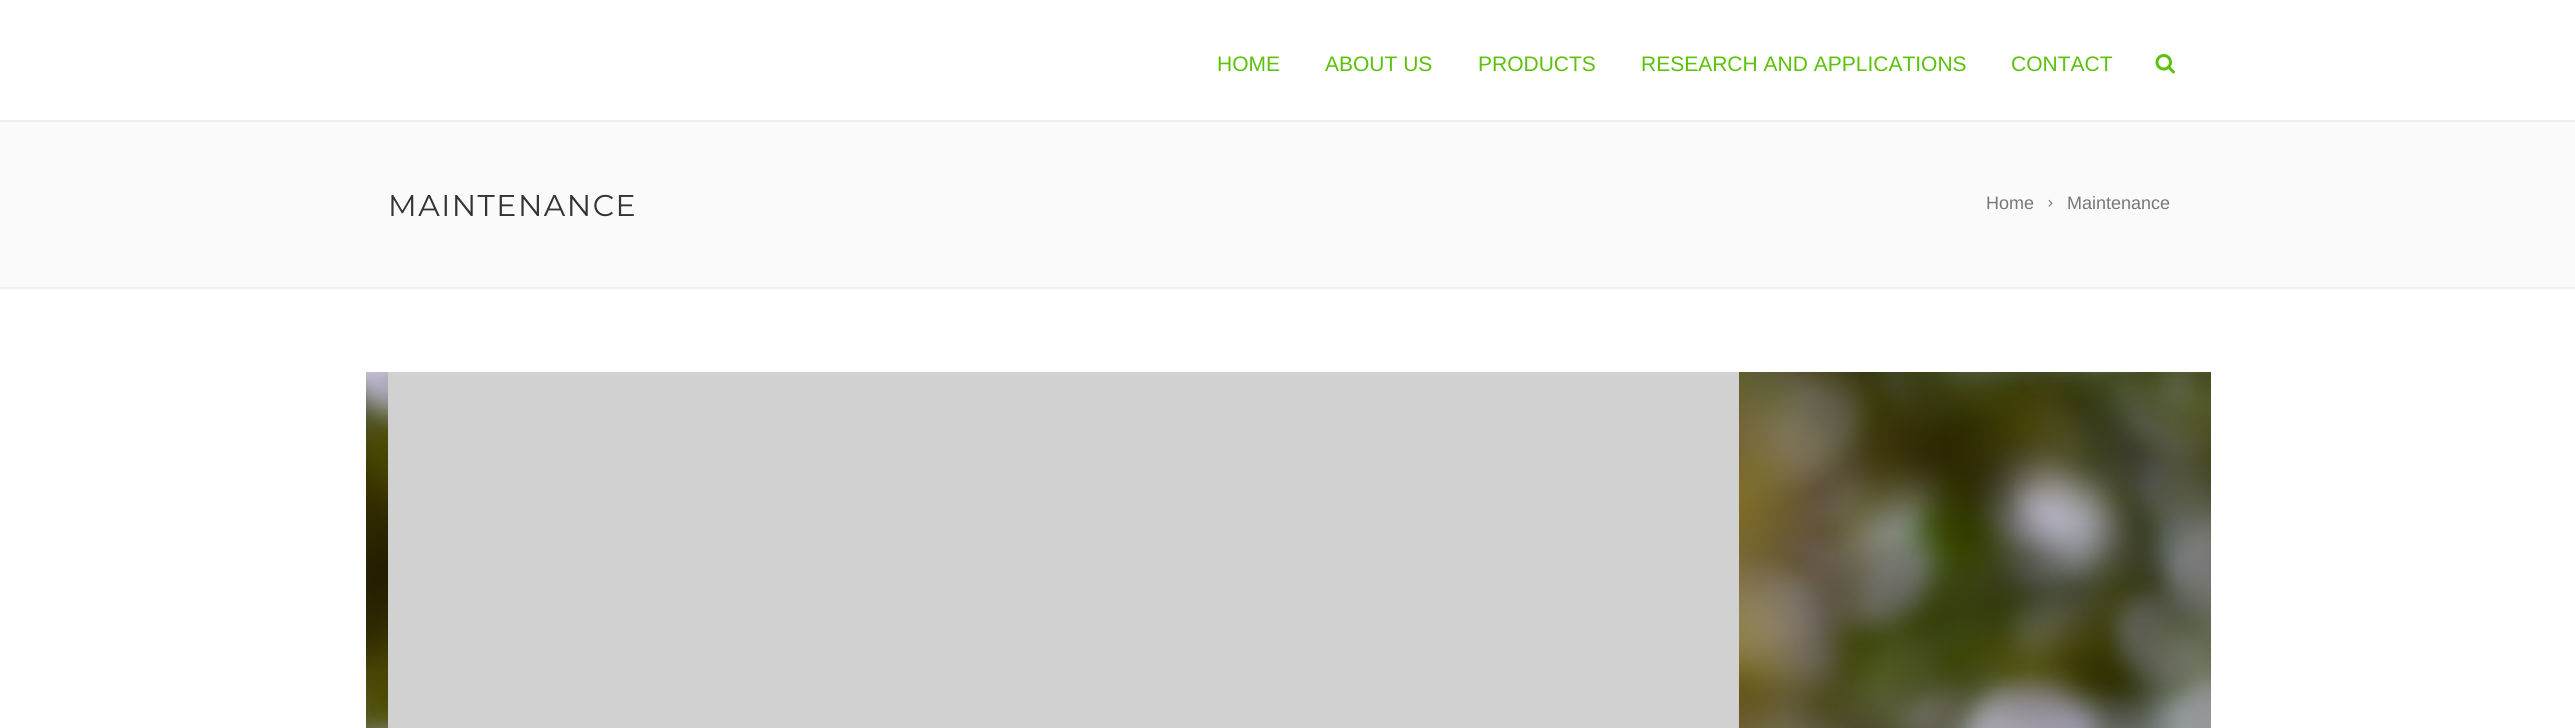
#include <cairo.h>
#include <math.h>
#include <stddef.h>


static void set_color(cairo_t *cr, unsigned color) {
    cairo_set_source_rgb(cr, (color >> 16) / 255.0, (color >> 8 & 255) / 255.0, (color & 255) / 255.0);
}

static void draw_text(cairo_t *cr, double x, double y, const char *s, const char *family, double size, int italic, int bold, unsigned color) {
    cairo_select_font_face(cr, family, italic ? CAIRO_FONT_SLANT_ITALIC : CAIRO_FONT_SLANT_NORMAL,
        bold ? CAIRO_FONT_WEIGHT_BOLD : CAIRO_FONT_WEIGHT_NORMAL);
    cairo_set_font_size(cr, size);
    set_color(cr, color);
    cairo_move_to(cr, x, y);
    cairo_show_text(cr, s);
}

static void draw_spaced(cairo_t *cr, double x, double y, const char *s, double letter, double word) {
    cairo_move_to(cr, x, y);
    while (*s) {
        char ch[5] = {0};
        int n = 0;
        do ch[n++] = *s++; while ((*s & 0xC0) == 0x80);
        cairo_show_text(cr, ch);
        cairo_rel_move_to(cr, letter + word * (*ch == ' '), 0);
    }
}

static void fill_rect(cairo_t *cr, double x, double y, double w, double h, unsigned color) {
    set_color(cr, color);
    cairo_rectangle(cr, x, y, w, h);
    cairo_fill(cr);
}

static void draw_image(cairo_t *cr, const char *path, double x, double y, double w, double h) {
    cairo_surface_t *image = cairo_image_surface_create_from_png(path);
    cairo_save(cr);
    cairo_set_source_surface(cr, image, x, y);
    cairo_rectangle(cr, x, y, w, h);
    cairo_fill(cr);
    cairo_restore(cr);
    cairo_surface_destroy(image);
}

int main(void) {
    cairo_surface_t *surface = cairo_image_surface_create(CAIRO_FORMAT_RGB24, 2575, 728);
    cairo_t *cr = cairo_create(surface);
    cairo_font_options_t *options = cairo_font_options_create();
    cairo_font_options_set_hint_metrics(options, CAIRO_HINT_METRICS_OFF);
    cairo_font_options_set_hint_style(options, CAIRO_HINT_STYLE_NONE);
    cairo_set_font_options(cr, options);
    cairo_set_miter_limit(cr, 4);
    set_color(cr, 0xFFFFFF);
    cairo_paint(cr);
    fill_rect(cr, 0, 120, 2575, 167, 0xFAFAFA);
    cairo_rectangle(cr, 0, 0, 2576, 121);
    cairo_set_source_rgba(cr, 0, 0, 0, 0.05);
    cairo_stroke(cr);
    fill_rect(cr, 0, 0, 2575, 120, 0xFFFFFF);
    draw_text(cr, 1217, 71, "HOME", "Liberation Sans", 21, 0, 0, 0x5CC109);
    draw_text(cr, 1325, 71, "ABOUT US", "Liberation Sans", 21, 0, 0, 0x5CC109);
    draw_text(cr, 1478, 71, "PRODUCTS", "Liberation Sans", 21, 0, 0, 0x5CC109);
    draw_text(cr, 1641, 71, "RESEARCH AND APPLICATIONS", "Liberation Sans", 21, 0, 0, 0x5CC109);
    draw_text(cr, 2011, 71, "CONTACT", "Liberation Sans", 21, 0, 0, 0x5CC109);
    draw_image(cr, "assets/img1.png", 2155, 54, 20, 20);
    fill_rect(cr, 0, 287, 2575, 2, 0xEEEEEE);
    cairo_select_font_face(cr, "Montserrat", CAIRO_FONT_SLANT_NORMAL, CAIRO_FONT_WEIGHT_NORMAL);
    cairo_set_font_size(cr, 30);
    set_color(cr, 0x333333);
    draw_spaced(cr, 388, 216, "MAINTENANCE", 1.5, 0);
    draw_text(cr, 1986, 209, "Home", "Arimo", 18, 0, 0, 0x777777);
    draw_image(cr, "assets/img2.png", 2048, 199, 5, 8);
    draw_text(cr, 2067, 209, "Maintenance", "Arimo", 18, 0, 0, 0x777777);
    draw_image(cr, "assets/img3.png", 366, 372, 1845, 356);
    fill_rect(cr, 388, 372, 1351, 356, 0xD1D1D1);
    cairo_surface_write_to_png(surface, "output.png");
    cairo_font_options_destroy(options);
    cairo_destroy(cr);
    cairo_surface_destroy(surface);
    return 0;
}
